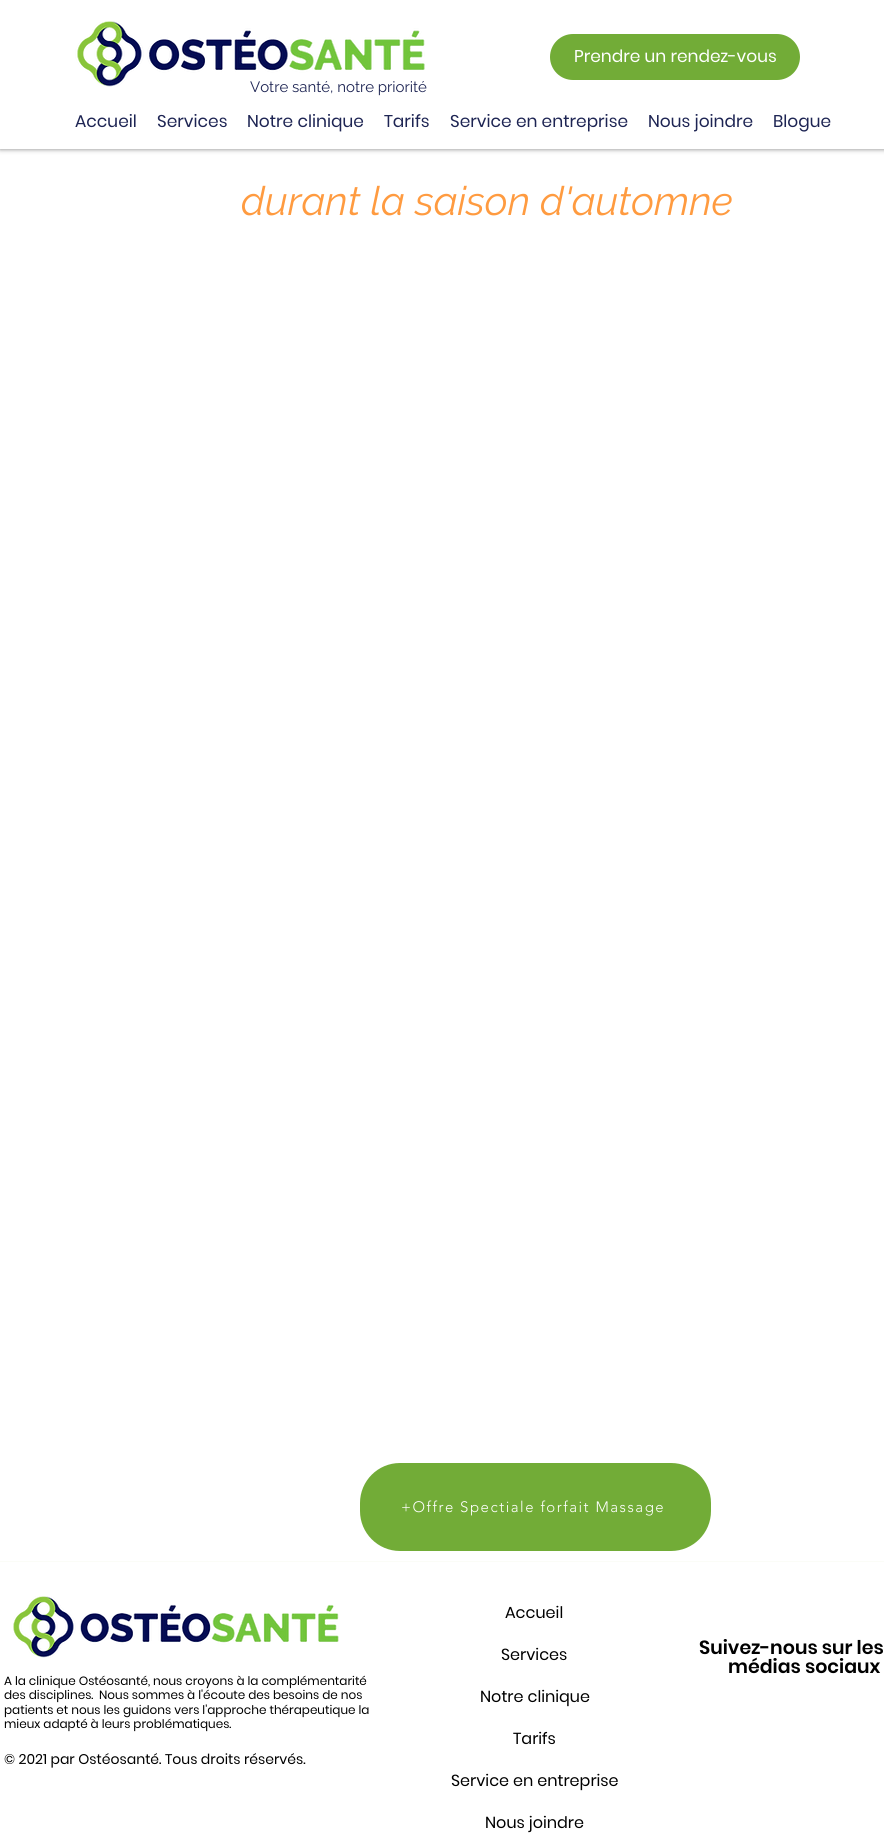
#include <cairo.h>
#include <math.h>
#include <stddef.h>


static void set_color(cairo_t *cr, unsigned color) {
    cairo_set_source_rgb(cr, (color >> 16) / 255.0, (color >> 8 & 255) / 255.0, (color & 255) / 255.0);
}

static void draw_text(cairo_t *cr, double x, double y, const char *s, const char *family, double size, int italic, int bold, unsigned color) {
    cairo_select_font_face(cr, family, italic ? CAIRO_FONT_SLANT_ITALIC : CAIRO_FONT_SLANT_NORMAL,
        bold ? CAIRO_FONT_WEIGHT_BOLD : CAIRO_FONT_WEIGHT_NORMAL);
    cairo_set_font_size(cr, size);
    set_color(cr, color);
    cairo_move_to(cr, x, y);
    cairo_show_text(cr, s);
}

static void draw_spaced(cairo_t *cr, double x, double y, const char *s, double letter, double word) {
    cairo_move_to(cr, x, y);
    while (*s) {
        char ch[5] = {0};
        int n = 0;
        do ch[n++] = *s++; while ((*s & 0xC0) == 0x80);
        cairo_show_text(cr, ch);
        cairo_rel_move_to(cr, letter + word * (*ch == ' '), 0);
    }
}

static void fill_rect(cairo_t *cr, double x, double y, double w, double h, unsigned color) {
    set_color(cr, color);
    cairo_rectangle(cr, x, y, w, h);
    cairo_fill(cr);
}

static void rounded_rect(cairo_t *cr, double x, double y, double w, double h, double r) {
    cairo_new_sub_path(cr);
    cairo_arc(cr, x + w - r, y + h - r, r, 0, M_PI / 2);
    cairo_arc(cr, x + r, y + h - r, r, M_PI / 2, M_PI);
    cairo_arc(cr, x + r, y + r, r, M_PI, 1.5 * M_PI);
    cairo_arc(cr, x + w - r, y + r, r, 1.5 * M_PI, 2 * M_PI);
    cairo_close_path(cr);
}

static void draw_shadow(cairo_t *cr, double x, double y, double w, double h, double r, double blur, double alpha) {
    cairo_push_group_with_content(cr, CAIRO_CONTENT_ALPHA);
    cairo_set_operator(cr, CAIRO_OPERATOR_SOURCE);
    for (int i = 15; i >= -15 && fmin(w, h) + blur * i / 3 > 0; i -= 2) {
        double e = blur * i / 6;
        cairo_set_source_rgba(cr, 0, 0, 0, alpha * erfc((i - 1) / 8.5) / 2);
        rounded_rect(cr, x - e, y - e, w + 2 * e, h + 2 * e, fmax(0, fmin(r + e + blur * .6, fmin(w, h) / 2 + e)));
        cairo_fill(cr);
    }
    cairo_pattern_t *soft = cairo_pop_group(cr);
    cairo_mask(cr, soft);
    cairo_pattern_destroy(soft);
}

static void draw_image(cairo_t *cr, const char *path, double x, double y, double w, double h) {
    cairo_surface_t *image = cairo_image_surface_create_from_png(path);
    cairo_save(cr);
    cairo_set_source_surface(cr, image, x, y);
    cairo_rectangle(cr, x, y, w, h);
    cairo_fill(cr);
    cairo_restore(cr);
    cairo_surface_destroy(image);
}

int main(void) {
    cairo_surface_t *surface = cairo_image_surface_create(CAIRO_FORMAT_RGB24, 884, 1847);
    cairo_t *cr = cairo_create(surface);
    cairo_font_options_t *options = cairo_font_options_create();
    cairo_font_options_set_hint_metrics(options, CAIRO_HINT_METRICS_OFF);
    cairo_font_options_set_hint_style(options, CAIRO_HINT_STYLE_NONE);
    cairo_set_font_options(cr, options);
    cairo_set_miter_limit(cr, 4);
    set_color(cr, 0xFFFFFF);
    cairo_paint(cr);
    set_color(cr, 0x000000);
    draw_shadow(cr, 0, 0, 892, 149, 0, 2.5, 0.5);
    fill_rect(cr, 0, 0, 884, 149, 0xFFFFFF);
    set_color(cr, 0x72AC37);
    rounded_rect(cr, 550, 34, 250, 46, 23);
    cairo_fill(cr);
    draw_text(cr, 574, 62, "Prendre un rendez-vous", "Poppins", 17, 0, 0, 0xFFFFFF);
    draw_image(cr, "assets/img1.png", 75, 21, 350, 66);
    draw_text(cr, 250, 92, "Votre santé, notre priorité", "Raleway", 15, 0, 0, 0x1D2453);
    draw_text(cr, 75, 127, "Accueil", "Poppins", 17, 0, 0, 0x1D2453);
    draw_text(cr, 157, 127, "Services", "Poppins", 17, 0, 0, 0x1D2453);
    draw_text(cr, 247, 127, "Notre clinique", "Poppins", 17, 0, 0, 0x1D2453);
    draw_text(cr, 384, 127, "Tarifs", "Poppins", 17, 0, 0, 0x1D2453);
    draw_text(cr, 450, 127, "Service en entreprise", "Poppins", 17, 0, 0, 0x1D2453);
    draw_text(cr, 648, 127, "Nous joindre", "Poppins", 17, 0, 0, 0x1D2453);
    draw_text(cr, 773, 127, "Blogue", "Poppins", 17, 0, 0, 0x1D2453);
    draw_text(cr, 241, 215, "durant la saison d'automne", "Raleway", 40, 1, 0, 0xFF9B40);
    set_color(cr, 0x72AC37);
    rounded_rect(cr, 360, 1463, 351, 88, 40);
    cairo_fill(cr);
    cairo_select_font_face(cr, "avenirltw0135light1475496 Light", CAIRO_FONT_SLANT_NORMAL, CAIRO_FONT_WEIGHT_NORMAL);
    cairo_set_font_size(cr, 15);
    set_color(cr, 0xFFFFFF);
    draw_spaced(cr, 401, 1512, "+Offre Spectiale forfait Massage", 1.5, 0);
    fill_rect(cr, 0, 1561, 884, 1, 0xFBFCF7);
    draw_image(cr, "assets/img2.png", 13, 1596, 326, 62);
    draw_text(cr, 505, 1618, "Accueil", "Poppins", 16, 0, 0, 0x000000);
    draw_text(cr, 501, 1660, "Services", "Poppins", 16, 0, 0, 0x000000);
    draw_text(cr, 480, 1702, "Notre clinique", "Poppins", 16, 0, 0, 0x000000);
    draw_text(cr, 513, 1744, "Tarifs", "Poppins", 16, 0, 0, 0x000000);
    draw_text(cr, 451, 1786, "Service en entreprise", "Poppins", 16, 0, 0, 0x000000);
    draw_text(cr, 485, 1828, "Nous joindre", "Poppins", 16, 0, 0, 0x000000);
    draw_text(cr, 699, 1654, "Suivez-nous sur les", "Poppins SemiBold", 19, 0, 0, 0x000000);
    draw_text(cr, 728, 1673, "médias sociaux", "Poppins SemiBold", 19, 0, 0, 0x000000);
    draw_text(cr, 4, 1685, "A la clinique Ostéosanté, nous croyons à la complémentarité", "Poppins", 12, 0, 0, 0x000000);
    draw_text(cr, 4, 1699, "des disciplines.", "Poppins", 12, 0, 0, 0x000000);
    draw_text(cr, 99, 1699, "Nous sommes à l'écoute des besoins de nos", "Poppins", 12, 0, 0, 0x000000);
    draw_text(cr, 4, 1714, "patients et nous les guidons vers l'approche thérapeutique la", "Poppins", 12, 0, 0, 0x000000);
    draw_text(cr, 4, 1728, "mieux adapté à leurs problématiques.", "Poppins", 12, 0, 0, 0x000000);
    draw_text(cr, 4, 1764, "© 2021 par Ostéosanté. Tous droits réservés.", "Poppins", 14, 0, 0, 0x000000);
    cairo_surface_write_to_png(surface, "output.png");
    cairo_font_options_destroy(options);
    cairo_destroy(cr);
    cairo_surface_destroy(surface);
    return 0;
}
